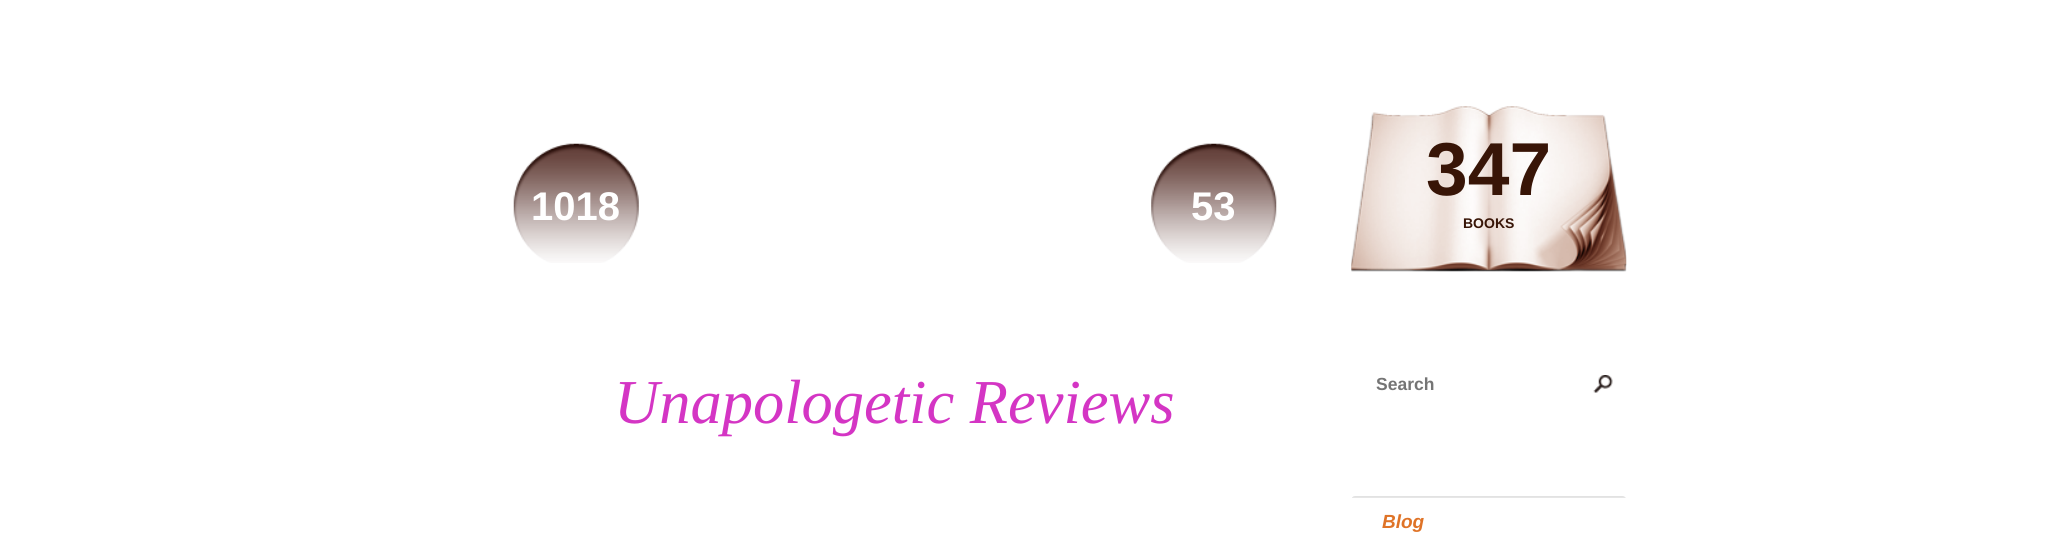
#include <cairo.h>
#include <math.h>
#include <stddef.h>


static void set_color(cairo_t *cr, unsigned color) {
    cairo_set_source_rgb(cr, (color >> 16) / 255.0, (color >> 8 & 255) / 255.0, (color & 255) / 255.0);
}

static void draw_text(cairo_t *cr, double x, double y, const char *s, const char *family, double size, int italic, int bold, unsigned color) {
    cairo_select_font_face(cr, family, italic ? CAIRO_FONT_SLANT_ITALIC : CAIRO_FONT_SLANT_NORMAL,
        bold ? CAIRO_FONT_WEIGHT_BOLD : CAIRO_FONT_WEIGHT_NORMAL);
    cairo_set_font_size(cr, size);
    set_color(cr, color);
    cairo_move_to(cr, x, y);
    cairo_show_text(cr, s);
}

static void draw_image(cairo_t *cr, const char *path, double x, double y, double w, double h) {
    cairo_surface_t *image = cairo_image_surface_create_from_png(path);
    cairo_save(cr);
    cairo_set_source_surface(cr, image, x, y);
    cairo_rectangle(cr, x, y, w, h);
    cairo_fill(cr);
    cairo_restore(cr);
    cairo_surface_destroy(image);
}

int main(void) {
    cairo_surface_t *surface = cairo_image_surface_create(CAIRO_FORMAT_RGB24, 2063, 544);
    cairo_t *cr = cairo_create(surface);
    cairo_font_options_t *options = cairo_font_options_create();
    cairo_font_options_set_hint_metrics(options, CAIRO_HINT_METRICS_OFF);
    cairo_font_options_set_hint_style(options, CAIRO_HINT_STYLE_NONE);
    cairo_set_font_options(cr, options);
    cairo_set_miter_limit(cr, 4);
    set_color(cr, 0xFFFFFF);
    cairo_paint(cr);
    draw_image(cr, "assets/img1.png", 513, 143, 126, 120);
    draw_text(cr, 531, 220, "1018", "Liberation Sans", 40, 0, 1, 0xFFFFFF);
    draw_image(cr, "assets/img2.png", 1151, 143, 126, 120);
    draw_text(cr, 1191, 220, "53", "Liberation Sans", 40, 0, 1, 0xFFFFFF);
    draw_text(cr, 614, 423, "Unapologetic Reviews", "Liberation Serif", 62.5, 1, 0, 0xD435C4);
    draw_image(cr, "assets/img3.png", 1351, 106, 276, 166);
    draw_text(cr, 1426, 195, "347", "Liberation Sans", 75, 0, 1, 0x381507);
    draw_text(cr, 1463, 228, "BOOKS", "Liberation Sans", 14, 0, 1, 0x381507);
    draw_image(cr, "assets/img4.png", 1593, 375, 20, 18);
    draw_text(cr, 1376, 390, "Search", "Liberation Sans", 17.5, 0, 1, 0x757575);
    draw_image(cr, "assets/img5.png", 1352, 496, 274, 2);
    draw_text(cr, 1382, 528, "Blog", "Liberation Sans", 19, 1, 1, 0xDF7327);
    cairo_surface_write_to_png(surface, "output.png");
    cairo_font_options_destroy(options);
    cairo_destroy(cr);
    cairo_surface_destroy(surface);
    return 0;
}
